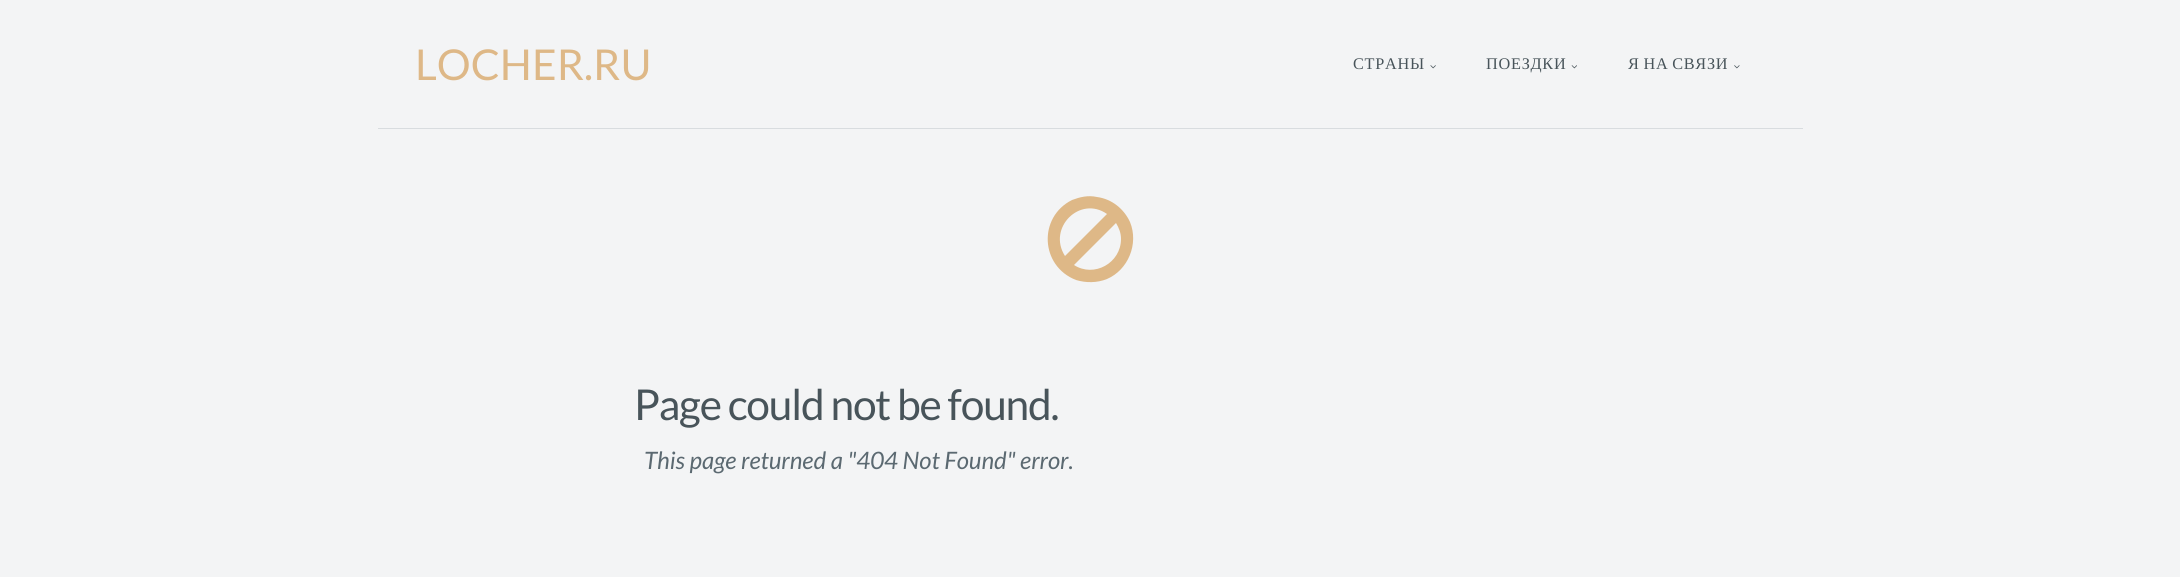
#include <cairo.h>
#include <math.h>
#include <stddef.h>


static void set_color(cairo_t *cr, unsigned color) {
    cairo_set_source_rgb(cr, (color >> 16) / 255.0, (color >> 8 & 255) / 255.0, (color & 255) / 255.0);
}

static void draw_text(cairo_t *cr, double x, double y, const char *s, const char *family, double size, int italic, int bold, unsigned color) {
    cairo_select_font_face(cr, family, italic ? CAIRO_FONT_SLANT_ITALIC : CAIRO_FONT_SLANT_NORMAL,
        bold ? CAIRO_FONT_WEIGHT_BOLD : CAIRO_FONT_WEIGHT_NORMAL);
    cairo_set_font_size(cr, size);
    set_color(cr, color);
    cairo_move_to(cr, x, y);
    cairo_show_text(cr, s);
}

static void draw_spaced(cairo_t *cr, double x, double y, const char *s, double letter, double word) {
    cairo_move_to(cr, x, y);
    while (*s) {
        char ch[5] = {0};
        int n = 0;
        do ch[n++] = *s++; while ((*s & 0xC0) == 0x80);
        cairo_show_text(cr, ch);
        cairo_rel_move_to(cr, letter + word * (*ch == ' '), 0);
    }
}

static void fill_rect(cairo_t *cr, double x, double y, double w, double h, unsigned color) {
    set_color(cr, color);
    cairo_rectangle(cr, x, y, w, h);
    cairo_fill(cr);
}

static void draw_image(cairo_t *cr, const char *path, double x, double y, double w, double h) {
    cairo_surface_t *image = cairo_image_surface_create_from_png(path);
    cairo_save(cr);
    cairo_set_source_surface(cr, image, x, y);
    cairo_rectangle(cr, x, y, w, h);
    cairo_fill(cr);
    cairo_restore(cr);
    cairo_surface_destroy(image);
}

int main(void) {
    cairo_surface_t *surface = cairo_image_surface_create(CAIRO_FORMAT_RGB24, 2180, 577);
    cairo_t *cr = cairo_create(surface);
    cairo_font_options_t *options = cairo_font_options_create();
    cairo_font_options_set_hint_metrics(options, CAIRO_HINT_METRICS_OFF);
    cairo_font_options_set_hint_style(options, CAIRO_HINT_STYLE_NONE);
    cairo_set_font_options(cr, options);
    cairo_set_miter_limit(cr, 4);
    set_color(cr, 0xF3F4F5);
    cairo_paint(cr);
    fill_rect(cr, 378, 128, 1425, 1, 0xD8DCDF);
    draw_text(cr, 415, 80, "LOCHER.RU", "Lato", 42.5, 0, 0, 0xDEB887);
    cairo_select_font_face(cr, "Liberation Serif", CAIRO_FONT_SLANT_NORMAL, CAIRO_FONT_WEIGHT_NORMAL);
    cairo_set_font_size(cr, 16.25);
    set_color(cr, 0x48545A);
    draw_spaced(cr, 1353, 69, "СТРАНЫ", 0.75, 0);
    draw_image(cr, "assets/img1.png", 1430, 65, 6, 4);
    draw_spaced(cr, 1486, 69, "ПОЕЗДКИ", 0.75, 0);
    draw_image(cr, "assets/img2.png", 1571, 65, 6, 4);
    draw_spaced(cr, 1628, 69, "Я НА СВЯЗИ", 0.75, -1);
    draw_image(cr, "assets/img3.png", 1734, 65, 6, 4);
    set_color(cr, 0xDEB887);
    cairo_new_path(cr);
    cairo_move_to(cr, 1121, 239);
    cairo_curve_to(cr, 1121, 233, 1119, 228, 1116, 223);
    cairo_line_to(cr, 1074, 265);
    cairo_curve_to(cr, 1094, 278, 1121, 263, 1121, 239);
    cairo_close_path(cr);
    cairo_move_to(cr, 1065, 256);
    cairo_line_to(cr, 1107, 214);
    cairo_curve_to(cr, 1080, 195, 1047, 228, 1065, 256);
    cairo_close_path(cr);
    cairo_move_to(cr, 1130, 222);
    cairo_curve_to(cr, 1139, 244, 1128, 270, 1107, 279);
    cairo_curve_to(cr, 1097, 283, 1086, 283, 1076, 280);
    cairo_curve_to(cr, 1040, 266, 1038, 217, 1072, 200);
    cairo_curve_to(cr, 1080, 197, 1088, 195, 1097, 197);
    cairo_curve_to(cr, 1112, 199, 1124, 209, 1130, 222);
    cairo_close_path(cr);
    cairo_fill(cr);
    cairo_select_font_face(cr, "Lato", CAIRO_FONT_SLANT_NORMAL, CAIRO_FONT_WEIGHT_NORMAL);
    cairo_set_font_size(cr, 42.5);
    set_color(cr, 0x48545A);
    draw_spaced(cr, 634, 420, "Page could not be found.", -1.2, 0);
    draw_text(cr, 644, 469, "This page returned a \"404 Not Found\" error.", "Lato", 24, 1, 0, 0x5B6971);
    cairo_surface_write_to_png(surface, "output.png");
    cairo_font_options_destroy(options);
    cairo_destroy(cr);
    cairo_surface_destroy(surface);
    return 0;
}
